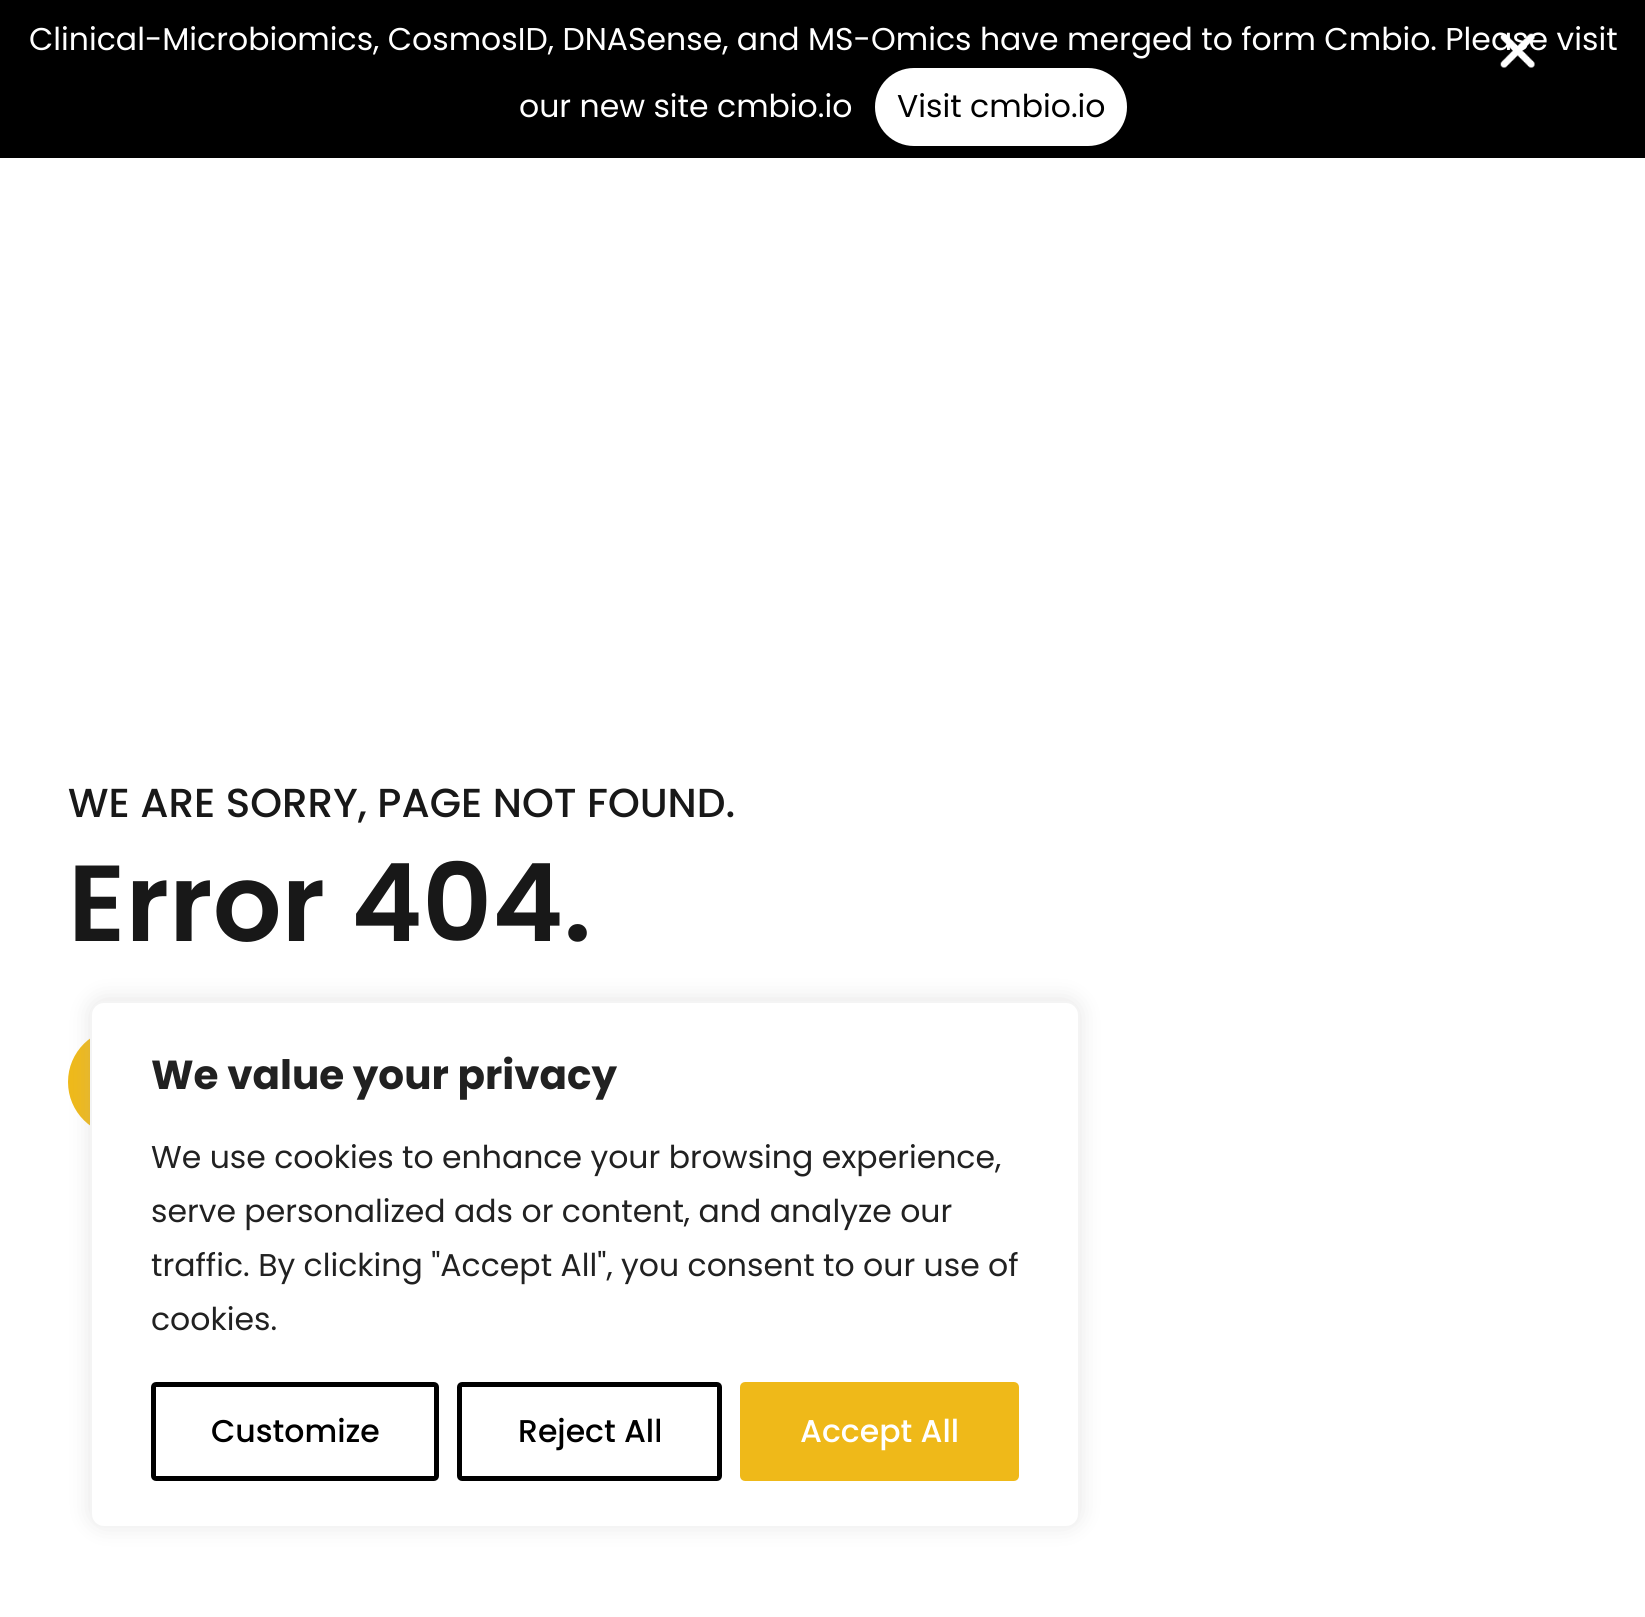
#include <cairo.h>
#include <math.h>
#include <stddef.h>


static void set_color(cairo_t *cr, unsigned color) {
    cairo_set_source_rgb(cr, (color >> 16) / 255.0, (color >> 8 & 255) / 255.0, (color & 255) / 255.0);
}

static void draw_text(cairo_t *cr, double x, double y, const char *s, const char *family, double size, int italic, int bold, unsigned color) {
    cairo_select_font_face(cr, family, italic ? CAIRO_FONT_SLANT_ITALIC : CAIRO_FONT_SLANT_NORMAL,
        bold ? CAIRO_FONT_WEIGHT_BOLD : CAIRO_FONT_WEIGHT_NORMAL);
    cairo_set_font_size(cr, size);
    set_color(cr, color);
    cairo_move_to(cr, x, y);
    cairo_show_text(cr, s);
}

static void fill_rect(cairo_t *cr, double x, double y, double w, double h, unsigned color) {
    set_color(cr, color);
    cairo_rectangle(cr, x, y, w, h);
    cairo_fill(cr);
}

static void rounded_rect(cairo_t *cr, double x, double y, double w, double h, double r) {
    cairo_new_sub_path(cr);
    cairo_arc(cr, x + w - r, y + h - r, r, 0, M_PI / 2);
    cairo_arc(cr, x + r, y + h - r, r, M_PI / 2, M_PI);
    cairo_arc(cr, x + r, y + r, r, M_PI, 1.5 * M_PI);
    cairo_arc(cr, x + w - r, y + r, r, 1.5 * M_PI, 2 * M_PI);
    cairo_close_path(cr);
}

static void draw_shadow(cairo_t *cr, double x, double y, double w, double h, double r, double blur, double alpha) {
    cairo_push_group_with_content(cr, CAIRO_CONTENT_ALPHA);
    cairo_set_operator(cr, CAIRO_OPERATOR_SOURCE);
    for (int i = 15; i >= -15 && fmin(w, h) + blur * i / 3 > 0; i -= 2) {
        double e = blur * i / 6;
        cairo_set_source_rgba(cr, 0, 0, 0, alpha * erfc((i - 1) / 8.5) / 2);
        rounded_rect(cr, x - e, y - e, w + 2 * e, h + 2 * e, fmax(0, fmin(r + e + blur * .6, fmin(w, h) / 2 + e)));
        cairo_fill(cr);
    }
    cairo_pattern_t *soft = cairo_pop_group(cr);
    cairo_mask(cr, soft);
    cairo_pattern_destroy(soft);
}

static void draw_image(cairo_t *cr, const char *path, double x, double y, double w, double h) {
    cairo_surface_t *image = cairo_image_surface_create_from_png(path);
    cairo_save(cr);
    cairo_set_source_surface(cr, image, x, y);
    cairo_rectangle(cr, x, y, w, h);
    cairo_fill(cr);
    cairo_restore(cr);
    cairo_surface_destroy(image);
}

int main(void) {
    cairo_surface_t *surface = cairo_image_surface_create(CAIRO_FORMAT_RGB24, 1645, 1617);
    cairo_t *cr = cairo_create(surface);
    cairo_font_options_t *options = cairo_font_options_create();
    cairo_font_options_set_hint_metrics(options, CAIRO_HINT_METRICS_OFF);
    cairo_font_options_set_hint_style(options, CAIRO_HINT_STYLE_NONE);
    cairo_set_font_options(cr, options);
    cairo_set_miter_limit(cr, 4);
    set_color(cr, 0xFFFFFF);
    cairo_paint(cr);
    fill_rect(cr, 0, 0, 1645, 158, 0x000000);
    draw_text(cr, 29, 50, "Clinical-Microbiomics, CosmosID, DNASense, and MS-Omics have merged to form Cmbio. Please visit", "Poppins", 31.5, 0, 0, 0xFFFFFF);
    draw_image(cr, "assets/img1.png", 1500, 33, 35, 35);
    draw_text(cr, 519, 117, "our new site cmbio.io", "Poppins", 31.5, 0, 0, 0xFFFFFF);
    rounded_rect(cr, 875, 68, 252, 78, 39);
    cairo_fill(cr);
    draw_text(cr, 897, 117, "Visit cmbio.io", "Poppins", 31.5, 0, 0, 0x000000);
    draw_text(cr, 68, 817, "WE ARE SORRY, PAGE NOT FOUND.", "Poppins Medium", 40.5, 0, 0, 0x181818);
    draw_text(cr, 68, 941, "Error 404.", "Poppins SemiBold", 108, 0, 0, 0x181818);
    set_color(cr, 0xEFB919);
    rounded_rect(cr, 68, 1028, 375, 108, 54);
    cairo_fill(cr);
    set_color(cr, 0xACABAB);
    draw_shadow(cr, 90, 999, 990, 527, 14, 11, 0.3);
    set_color(cr, 0xFFFFFF);
    rounded_rect(cr, 91, 1002, 988, 525, 13);
    cairo_fill_preserve(cr);
    set_color(cr, 0xF4F4F4);
    cairo_stroke(cr);
    draw_text(cr, 151, 1089, "We value your privacy", "Poppins", 40.5, 0, 1, 0x212121);
    draw_text(cr, 151, 1168, "We use cookies to enhance your browsing experience,", "Poppins", 31.5, 0, 0, 0x212121);
    draw_text(cr, 151, 1222, "serve personalized ads or content, and analyze our", "Poppins", 31.5, 0, 0, 0x212121);
    draw_text(cr, 151, 1276, "traffic. By clicking \"Accept All\", you consent to our use of", "Poppins", 31.5, 0, 0, 0x212121);
    draw_text(cr, 151, 1330, "cookies.", "Poppins", 31.5, 0, 0, 0x212121);
    rounded_rect(cr, 153.5, 1384.5, 283, 94, 2.5);
    set_color(cr, 0x000000);
    cairo_set_line_width(cr, 5);
    cairo_stroke(cr);
    draw_text(cr, 211, 1442, "Customize", "Poppins Medium", 31.5, 0, 0, 0x000000);
    rounded_rect(cr, 459.5, 1384.5, 260, 94, 2.5);
    cairo_stroke(cr);
    draw_text(cr, 518, 1442, "Reject All", "Poppins Medium", 31.5, 0, 0, 0x000000);
    set_color(cr, 0xEFB919);
    rounded_rect(cr, 742.5, 1384.5, 274, 94, 2.5);
    cairo_fill_preserve(cr);
    cairo_stroke(cr);
    draw_text(cr, 800, 1442, "Accept All", "Poppins Medium", 31.5, 0, 0, 0xFFFFFF);
    cairo_surface_write_to_png(surface, "output.png");
    cairo_font_options_destroy(options);
    cairo_destroy(cr);
    cairo_surface_destroy(surface);
    return 0;
}
